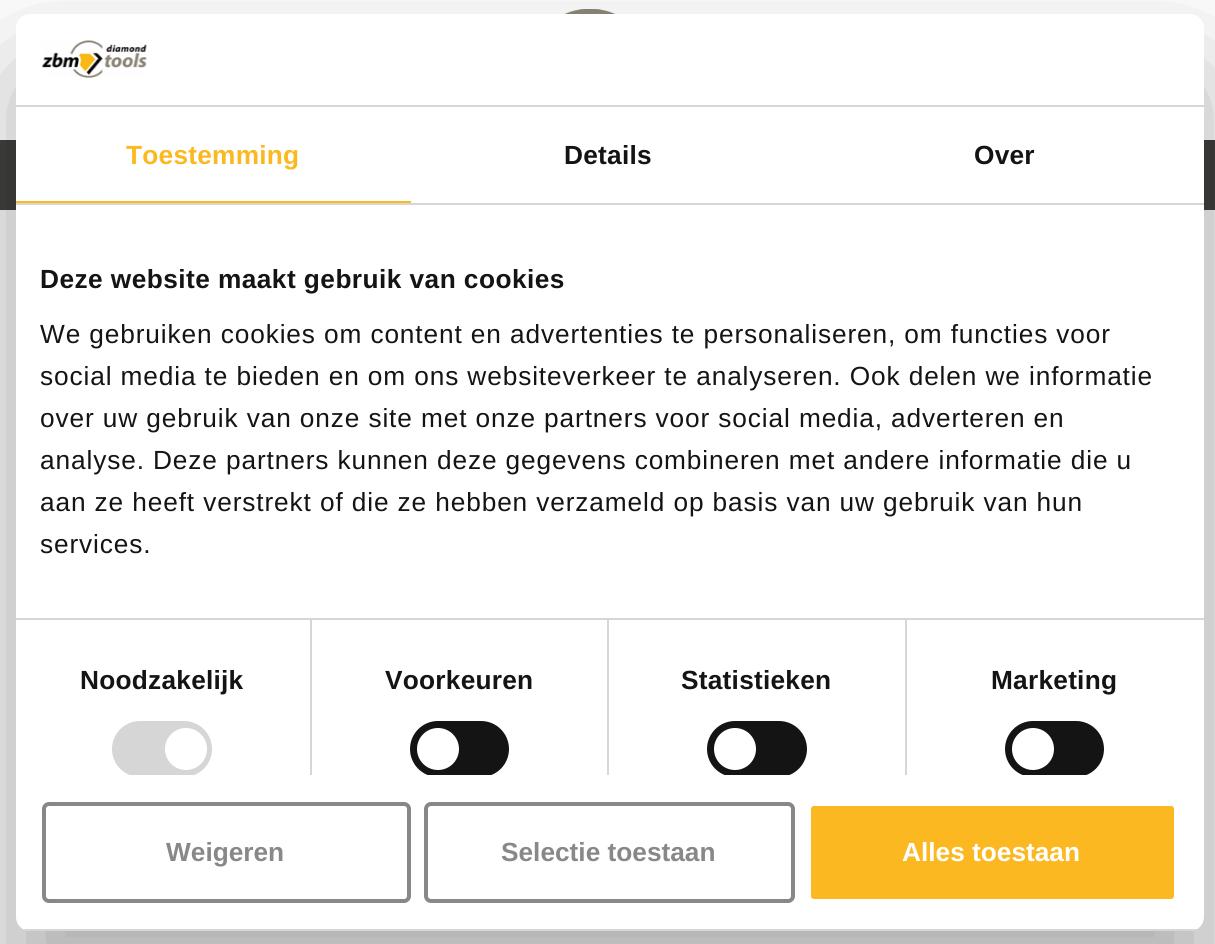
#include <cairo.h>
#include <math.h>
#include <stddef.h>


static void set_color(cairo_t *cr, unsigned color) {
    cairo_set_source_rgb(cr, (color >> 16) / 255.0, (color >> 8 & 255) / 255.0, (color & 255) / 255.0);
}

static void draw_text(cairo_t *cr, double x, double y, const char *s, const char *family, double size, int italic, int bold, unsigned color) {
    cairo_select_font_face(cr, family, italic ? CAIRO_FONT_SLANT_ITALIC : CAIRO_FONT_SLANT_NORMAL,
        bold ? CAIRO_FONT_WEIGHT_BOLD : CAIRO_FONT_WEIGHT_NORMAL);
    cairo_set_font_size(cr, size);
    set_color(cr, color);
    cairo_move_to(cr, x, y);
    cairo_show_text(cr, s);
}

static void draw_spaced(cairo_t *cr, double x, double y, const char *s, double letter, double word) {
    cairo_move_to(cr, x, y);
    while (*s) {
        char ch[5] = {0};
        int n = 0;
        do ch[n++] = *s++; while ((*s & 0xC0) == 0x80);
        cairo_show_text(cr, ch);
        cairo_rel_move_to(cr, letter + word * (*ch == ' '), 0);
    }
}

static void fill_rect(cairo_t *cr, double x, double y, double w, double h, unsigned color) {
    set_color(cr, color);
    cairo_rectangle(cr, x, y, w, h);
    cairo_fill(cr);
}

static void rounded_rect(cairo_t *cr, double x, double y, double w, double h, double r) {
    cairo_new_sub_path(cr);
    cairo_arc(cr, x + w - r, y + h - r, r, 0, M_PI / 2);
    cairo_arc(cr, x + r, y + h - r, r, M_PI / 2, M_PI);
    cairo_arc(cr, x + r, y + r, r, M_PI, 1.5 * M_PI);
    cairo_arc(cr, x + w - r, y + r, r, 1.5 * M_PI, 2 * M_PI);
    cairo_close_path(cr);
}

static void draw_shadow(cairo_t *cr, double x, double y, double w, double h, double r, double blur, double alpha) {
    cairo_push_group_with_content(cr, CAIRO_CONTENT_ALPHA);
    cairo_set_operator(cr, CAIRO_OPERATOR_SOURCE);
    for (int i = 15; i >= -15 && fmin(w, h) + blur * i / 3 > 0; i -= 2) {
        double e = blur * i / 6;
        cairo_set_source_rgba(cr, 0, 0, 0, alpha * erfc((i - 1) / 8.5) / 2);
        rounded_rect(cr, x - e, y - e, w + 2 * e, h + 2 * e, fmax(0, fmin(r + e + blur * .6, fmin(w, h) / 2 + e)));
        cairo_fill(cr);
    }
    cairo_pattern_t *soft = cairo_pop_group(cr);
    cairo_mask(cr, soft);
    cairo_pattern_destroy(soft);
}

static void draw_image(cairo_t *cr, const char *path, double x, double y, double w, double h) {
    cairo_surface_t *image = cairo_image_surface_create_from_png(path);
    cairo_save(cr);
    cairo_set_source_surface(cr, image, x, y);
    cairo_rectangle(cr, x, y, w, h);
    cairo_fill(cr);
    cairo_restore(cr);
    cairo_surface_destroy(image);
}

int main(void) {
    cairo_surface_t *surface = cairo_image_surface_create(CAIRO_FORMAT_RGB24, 1215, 944);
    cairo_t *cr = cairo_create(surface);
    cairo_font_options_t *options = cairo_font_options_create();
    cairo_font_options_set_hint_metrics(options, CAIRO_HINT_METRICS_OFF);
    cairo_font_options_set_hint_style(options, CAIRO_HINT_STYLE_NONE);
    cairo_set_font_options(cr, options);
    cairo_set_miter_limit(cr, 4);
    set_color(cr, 0xF4F4F4);
    cairo_paint(cr);
    fill_rect(cr, 0, 0, 1215, 140, 0xFFFFFF);
    draw_image(cr, "assets/img1.png", 564, 9, 52, 5);
    fill_rect(cr, 0, 140, 1215, 70, 0x40403E);
    set_color(cr, 0x000000);
    draw_shadow(cr, 16, 70, 1188, 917, 14, 59.5, 0.3);
    set_color(cr, 0xFFFFFF);
    rounded_rect(cr, 16, 14, 1188, 917, 14);
    cairo_fill(cr);
    fill_rect(cr, 16, 105, 1188, 2, 0xD6D6D6);
    draw_image(cr, "assets/img2.png", 42, 40, 105, 38);
    fill_rect(cr, 16, 203, 1188, 2, 0xD6D6D6);
    fill_rect(cr, 16, 201, 395, 2, 0xFCB820);
    cairo_select_font_face(cr, "Liberation Sans", CAIRO_FONT_SLANT_NORMAL, CAIRO_FONT_WEIGHT_BOLD);
    cairo_set_font_size(cr, 26.25);
    draw_spaced(cr, 126, 164, "Toestemming", 0.25, 0);
    set_color(cr, 0x141414);
    draw_spaced(cr, 564, 164, "Details", 0.25, 0);
    draw_spaced(cr, 974, 164, "Over", 0.25, 0);
    fill_rect(cr, 16, 618, 1188, 2, 0xD6D6D6);
    set_color(cr, 0x141414);
    draw_spaced(cr, 40, 288, "Deze website maakt gebruik van cookies", 0.45, 0);
    cairo_select_font_face(cr, "Liberation Sans", CAIRO_FONT_SLANT_NORMAL, CAIRO_FONT_WEIGHT_NORMAL);
    draw_spaced(cr, 40, 343, "We gebruiken cookies om content en advertenties te personaliseren, om functies voor", 0.88, 0);
    draw_spaced(cr, 40, 385, "social media te bieden en om ons websiteverkeer te analyseren. Ook delen we informatie", 0.88, 0);
    draw_spaced(cr, 40, 427, "over uw gebruik van onze site met onze partners voor social media, adverteren en", 0.88, 0);
    draw_spaced(cr, 40, 469, "analyse. Deze partners kunnen deze gegevens combineren met andere informatie die u", 0.88, 0);
    draw_spaced(cr, 40, 511, "aan ze heeft verstrekt of die ze hebben verzameld op basis van uw gebruik van hun", 0.88, 0);
    draw_spaced(cr, 40, 553, "services.", 0.88, 0);
    fill_rect(cr, 310, 620, 2, 155, 0xD6D6D6);
    cairo_select_font_face(cr, "Liberation Sans", CAIRO_FONT_SLANT_NORMAL, CAIRO_FONT_WEIGHT_BOLD);
    set_color(cr, 0x141414);
    draw_spaced(cr, 80, 689, "Noodzakelijk", 0.25, 0);
    cairo_save(cr);
    cairo_rectangle(cr, 16, 205, 1188, 570);
    cairo_clip(cr);
    set_color(cr, 0xD6D6D6);
    rounded_rect(cr, 112, 721, 100, 56, 28);
    cairo_fill(cr);
    cairo_restore(cr);
    set_color(cr, 0xFFFFFF);
    cairo_arc(cr, 186, 749, 21, 0, 2 * M_PI);
    cairo_fill(cr);
    fill_rect(cr, 607, 620, 2, 155, 0xD6D6D6);
    set_color(cr, 0x141414);
    draw_spaced(cr, 385, 689, "Voorkeuren", 0.25, 0);
    cairo_save(cr);
    cairo_rectangle(cr, 16, 205, 1188, 570);
    cairo_clip(cr);
    rounded_rect(cr, 410, 721, 99, 56, 28);
    cairo_fill(cr);
    cairo_restore(cr);
    set_color(cr, 0xFFFFFF);
    cairo_arc(cr, 438, 749, 21, 0, 2 * M_PI);
    cairo_fill(cr);
    fill_rect(cr, 905, 620, 2, 155, 0xD6D6D6);
    set_color(cr, 0x141414);
    draw_spaced(cr, 681, 689, "Statistieken", 0.25, 0);
    cairo_save(cr);
    cairo_rectangle(cr, 16, 205, 1188, 570);
    cairo_clip(cr);
    rounded_rect(cr, 707, 721, 100, 56, 28);
    cairo_fill(cr);
    cairo_restore(cr);
    set_color(cr, 0xFFFFFF);
    cairo_arc(cr, 735, 749, 21, 0, 2 * M_PI);
    cairo_fill(cr);
    set_color(cr, 0x141414);
    draw_spaced(cr, 991, 689, "Marketing", 0.25, 0);
    cairo_save(cr);
    cairo_rectangle(cr, 16, 205, 1188, 570);
    cairo_clip(cr);
    rounded_rect(cr, 1005, 721, 99, 56, 28);
    cairo_fill(cr);
    cairo_restore(cr);
    set_color(cr, 0xFFFFFF);
    cairo_arc(cr, 1033, 749, 21, 0, 2 * M_PI);
    cairo_fill(cr);
    cairo_save(cr);
    rounded_rect(cr, 16, 14, 1188, 917, 14);
    cairo_clip(cr);
    fill_rect(cr, 16, 929, 1188, 2, 0xD6D6D6);
    cairo_restore(cr);
    rounded_rect(cr, 44, 804, 365, 97, 5);
    set_color(cr, 0x888888);
    cairo_set_line_width(cr, 4);
    cairo_stroke(cr);
    draw_text(cr, 166, 861, "Weigeren", "Liberation Sans", 26.25, 0, 1, 0x888888);
    rounded_rect(cr, 426, 804, 367, 97, 5);
    cairo_stroke(cr);
    draw_text(cr, 501, 861, "Selectie toestaan", "Liberation Sans", 26.25, 0, 1, 0x888888);
    set_color(cr, 0xFCB820);
    rounded_rect(cr, 809, 804, 367, 97, 5);
    cairo_fill_preserve(cr);
    set_color(cr, 0xFFFFFF);
    cairo_stroke(cr);
    draw_text(cr, 902, 861, "Alles toestaan", "Liberation Sans", 26.25, 0, 1, 0xFFFFFF);
    cairo_surface_write_to_png(surface, "output.png");
    cairo_font_options_destroy(options);
    cairo_destroy(cr);
    cairo_surface_destroy(surface);
    return 0;
}
